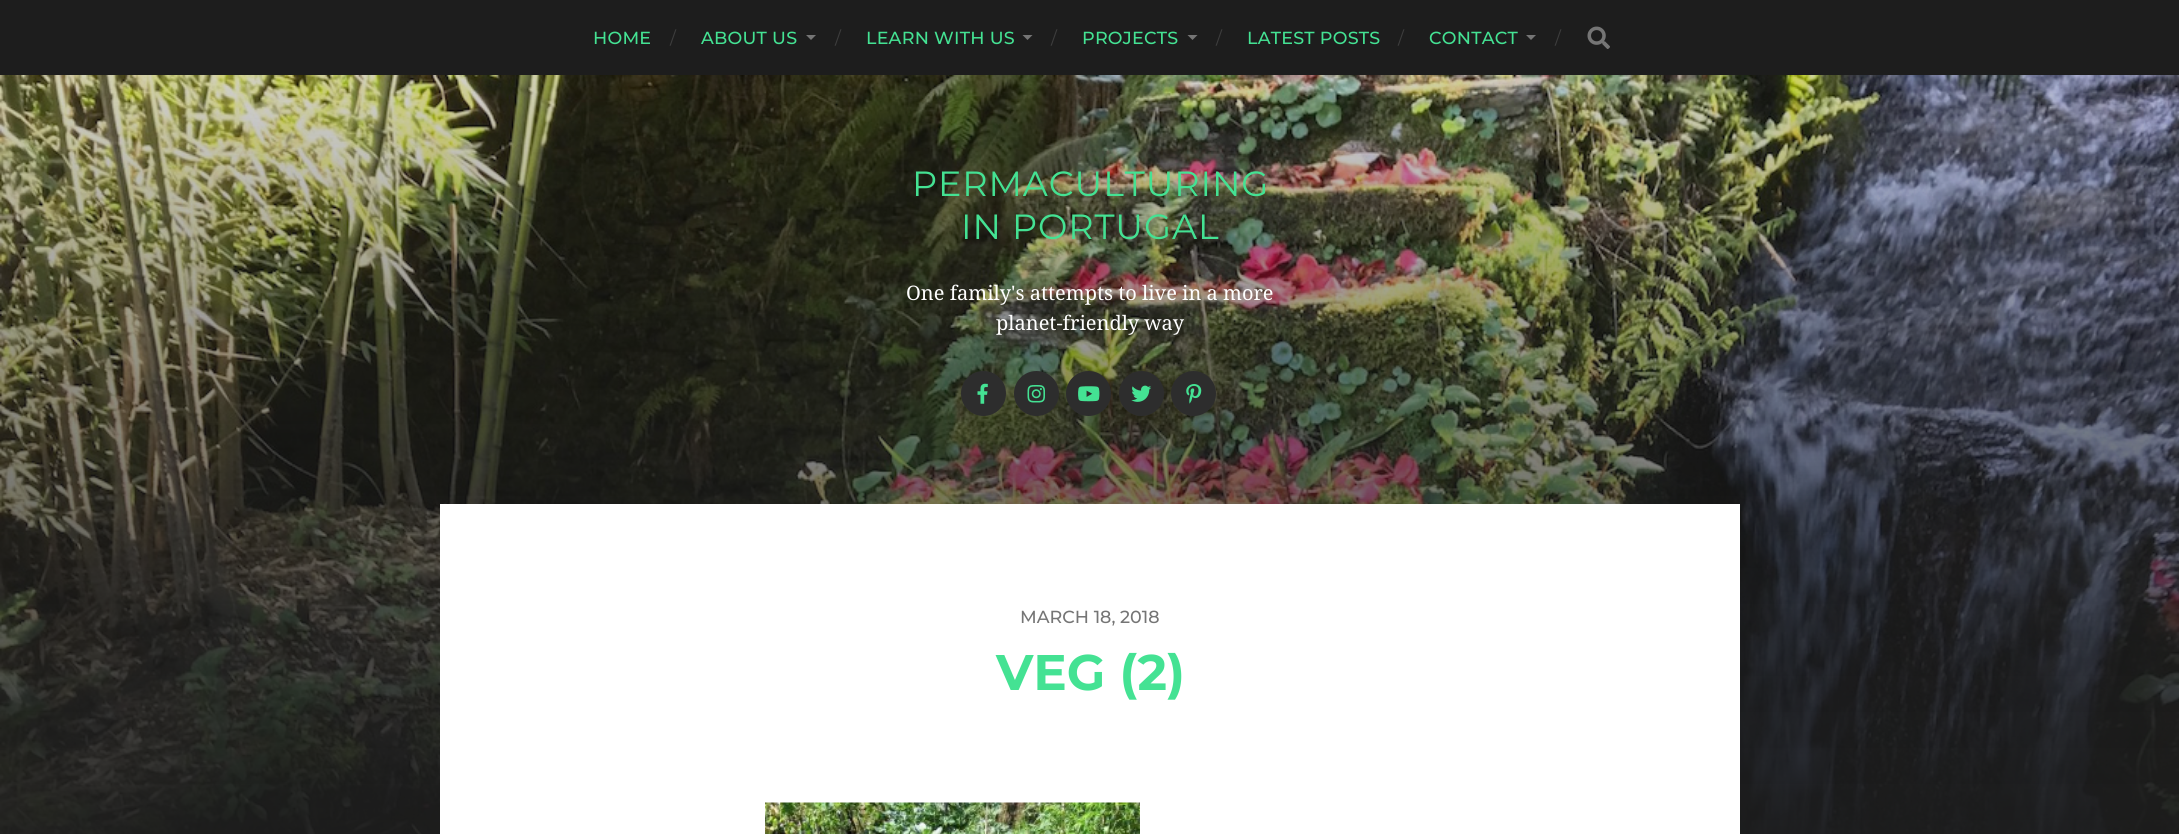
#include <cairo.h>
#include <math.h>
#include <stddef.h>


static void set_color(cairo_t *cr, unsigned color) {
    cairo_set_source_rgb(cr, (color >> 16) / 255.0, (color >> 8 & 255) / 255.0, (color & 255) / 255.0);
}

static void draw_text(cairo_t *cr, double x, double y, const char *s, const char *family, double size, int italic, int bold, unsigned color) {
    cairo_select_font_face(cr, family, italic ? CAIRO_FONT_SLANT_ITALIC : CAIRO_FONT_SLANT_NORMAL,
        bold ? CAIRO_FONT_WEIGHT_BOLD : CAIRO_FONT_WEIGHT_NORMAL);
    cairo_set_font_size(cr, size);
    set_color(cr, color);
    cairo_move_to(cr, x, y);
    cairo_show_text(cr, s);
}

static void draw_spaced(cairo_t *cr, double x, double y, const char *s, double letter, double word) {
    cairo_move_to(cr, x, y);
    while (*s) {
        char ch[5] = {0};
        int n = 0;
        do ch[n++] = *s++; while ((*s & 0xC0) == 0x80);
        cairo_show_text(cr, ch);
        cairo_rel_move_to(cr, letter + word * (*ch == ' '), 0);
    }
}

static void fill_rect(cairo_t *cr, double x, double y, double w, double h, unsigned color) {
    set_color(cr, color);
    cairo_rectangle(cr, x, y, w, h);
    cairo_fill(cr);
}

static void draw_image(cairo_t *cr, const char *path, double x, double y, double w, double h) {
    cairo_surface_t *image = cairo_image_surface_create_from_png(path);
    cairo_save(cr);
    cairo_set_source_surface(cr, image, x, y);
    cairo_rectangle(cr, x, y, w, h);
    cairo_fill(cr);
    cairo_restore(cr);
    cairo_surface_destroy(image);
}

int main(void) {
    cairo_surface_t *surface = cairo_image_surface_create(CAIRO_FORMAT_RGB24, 2179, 834);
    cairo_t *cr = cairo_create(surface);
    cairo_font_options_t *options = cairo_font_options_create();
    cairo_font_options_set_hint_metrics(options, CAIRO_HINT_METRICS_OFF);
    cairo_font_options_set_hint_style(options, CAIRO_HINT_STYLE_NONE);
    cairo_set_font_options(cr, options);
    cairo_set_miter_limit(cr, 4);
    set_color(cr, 0x1D1D1D);
    cairo_paint(cr);
    cairo_select_font_face(cr, "Montserrat Medium", CAIRO_FONT_SLANT_NORMAL, CAIRO_FONT_WEIGHT_NORMAL);
    cairo_set_font_size(cr, 17.5);
    set_color(cr, 0x44E293);
    draw_spaced(cr, 593, 44, "HOME", 0.25, 0);
    draw_text(cr, 670, 44, "/", "Montserrat", 17.5, 0, 0, 0x3D3D3D);
    cairo_select_font_face(cr, "Montserrat Medium", CAIRO_FONT_SLANT_NORMAL, CAIRO_FONT_WEIGHT_NORMAL);
    set_color(cr, 0x44E293);
    draw_spaced(cr, 701, 44, "ABOUT US", 0.25, 0);
    set_color(cr, 0x757575);
    cairo_new_path(cr);
    cairo_move_to(cr, 806, 35);
    cairo_line_to(cr, 816, 35);
    cairo_line_to(cr, 811, 40);
    cairo_close_path(cr);
    cairo_fill(cr);
    draw_text(cr, 835, 44, "/", "Montserrat", 17.5, 0, 0, 0x3D3D3D);
    cairo_select_font_face(cr, "Montserrat Medium", CAIRO_FONT_SLANT_NORMAL, CAIRO_FONT_WEIGHT_NORMAL);
    set_color(cr, 0x44E293);
    draw_spaced(cr, 866, 44, "LEARN WITH US", 0.25, 0);
    set_color(cr, 0x757575);
    cairo_new_path(cr);
    cairo_move_to(cr, 1022.5, 35);
    cairo_line_to(cr, 1032.5, 35);
    cairo_line_to(cr, 1027.5, 40);
    cairo_close_path(cr);
    cairo_fill(cr);
    draw_text(cr, 1051, 44, "/", "Montserrat", 17.5, 0, 0, 0x3D3D3D);
    cairo_select_font_face(cr, "Montserrat Medium", CAIRO_FONT_SLANT_NORMAL, CAIRO_FONT_WEIGHT_NORMAL);
    set_color(cr, 0x44E293);
    draw_spaced(cr, 1082, 44, "PROJECTS", 0.25, 0);
    set_color(cr, 0x757575);
    cairo_new_path(cr);
    cairo_move_to(cr, 1187.5, 35);
    cairo_line_to(cr, 1197.5, 35);
    cairo_line_to(cr, 1192.5, 40);
    cairo_close_path(cr);
    cairo_fill(cr);
    draw_text(cr, 1216, 44, "/", "Montserrat", 17.5, 0, 0, 0x3D3D3D);
    cairo_select_font_face(cr, "Montserrat Medium", CAIRO_FONT_SLANT_NORMAL, CAIRO_FONT_WEIGHT_NORMAL);
    set_color(cr, 0x44E293);
    draw_spaced(cr, 1247, 44, "LATEST POSTS", 0.25, 0);
    draw_text(cr, 1398, 44, "/", "Montserrat", 17.5, 0, 0, 0x3D3D3D);
    cairo_select_font_face(cr, "Montserrat Medium", CAIRO_FONT_SLANT_NORMAL, CAIRO_FONT_WEIGHT_NORMAL);
    set_color(cr, 0x44E293);
    draw_spaced(cr, 1429, 44, "CONTACT", 0.25, 0);
    set_color(cr, 0x757575);
    cairo_new_path(cr);
    cairo_move_to(cr, 1526, 35);
    cairo_line_to(cr, 1536, 35);
    cairo_line_to(cr, 1531, 40);
    cairo_close_path(cr);
    cairo_fill(cr);
    draw_text(cr, 1555, 44, "/", "Montserrat", 17.5, 0, 0, 0x3D3D3D);
    draw_image(cr, "assets/img1.png", 1587, 26, 23, 23);
    draw_image(cr, "assets/img2.png", 0, 75, 2179, 759);
    cairo_set_font_size(cr, 35);
    set_color(cr, 0x44E293);
    draw_spaced(cr, 912, 196, "PERMACULTURING", 0.9, 0);
    draw_spaced(cr, 961, 239, "IN PORTUGAL", 0.9, 0);
    draw_text(cr, 906, 300, "One family's attempts to live in a more", "Droid Serif", 20, 0, 0, 0xFFFFFF);
    draw_text(cr, 996, 330, "planet-friendly way", "Droid Serif", 20, 0, 0, 0xFFFFFF);
    set_color(cr, 0x2D2D2D);
    cairo_new_path(cr);
    cairo_arc(cr, 983.5, 393.5, 22.5, 0, 2 * M_PI);
    cairo_fill(cr);
    draw_image(cr, "assets/img3.png", 977, 383, 11, 21);
    cairo_arc(cr, 1036.5, 393.5, 22.5, 0, 2 * M_PI);
    cairo_fill(cr);
    draw_image(cr, "assets/img4.png", 1027, 385, 18, 18);
    cairo_arc(cr, 1088.5, 393.5, 22.5, 0, 2 * M_PI);
    cairo_fill(cr);
    draw_image(cr, "assets/img5.png", 1078, 386, 22, 16);
    cairo_arc(cr, 1141.5, 393.5, 22.5, 0, 2 * M_PI);
    cairo_fill(cr);
    draw_image(cr, "assets/img6.png", 1131, 385, 21, 17);
    cairo_arc(cr, 1193.5, 393.5, 22.5, 0, 2 * M_PI);
    cairo_fill(cr);
    draw_image(cr, "assets/img7.png", 1186, 384, 16, 20);
    fill_rect(cr, 440, 504, 1300, 330, 0xFFFFFF);
    draw_text(cr, 1020, 623, "MARCH 18, 2018", "Montserrat Medium", 17.5, 0, 0, 0x757575);
    draw_text(cr, 996, 690, "VEG (2)", "Montserrat", 50, 0, 1, 0x44E293);
    draw_image(cr, "assets/img8.png", 765, 802, 375, 32);
    cairo_surface_write_to_png(surface, "output.png");
    cairo_font_options_destroy(options);
    cairo_destroy(cr);
    cairo_surface_destroy(surface);
    return 0;
}
